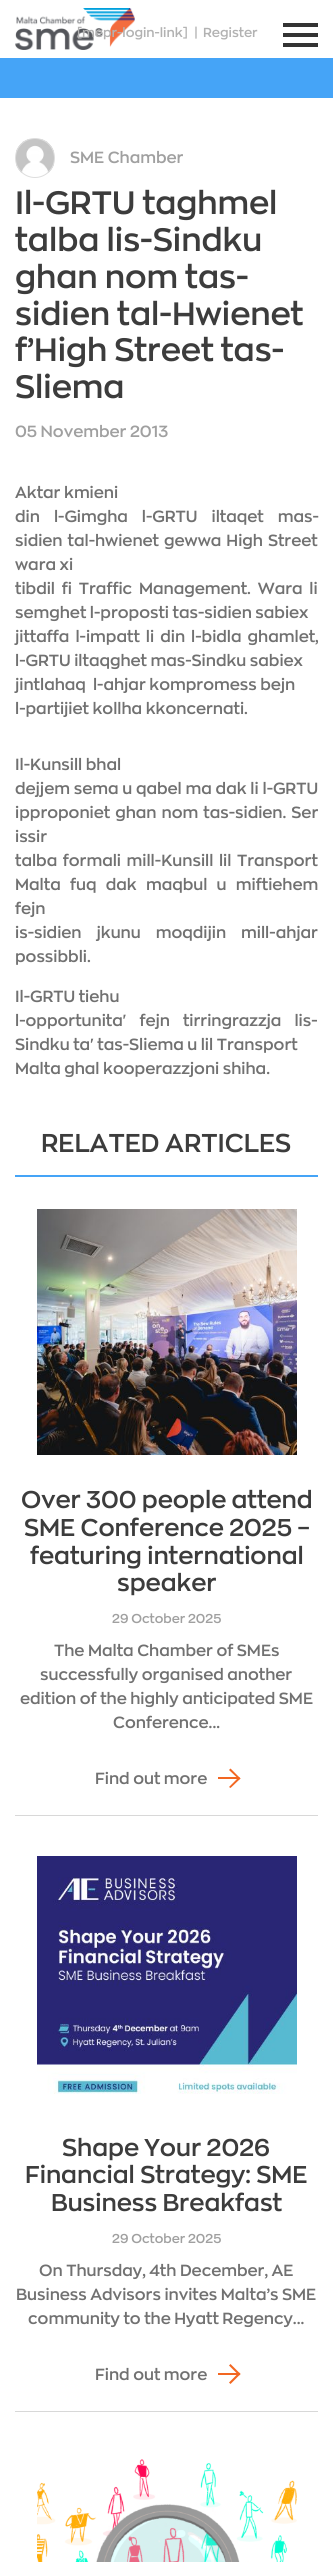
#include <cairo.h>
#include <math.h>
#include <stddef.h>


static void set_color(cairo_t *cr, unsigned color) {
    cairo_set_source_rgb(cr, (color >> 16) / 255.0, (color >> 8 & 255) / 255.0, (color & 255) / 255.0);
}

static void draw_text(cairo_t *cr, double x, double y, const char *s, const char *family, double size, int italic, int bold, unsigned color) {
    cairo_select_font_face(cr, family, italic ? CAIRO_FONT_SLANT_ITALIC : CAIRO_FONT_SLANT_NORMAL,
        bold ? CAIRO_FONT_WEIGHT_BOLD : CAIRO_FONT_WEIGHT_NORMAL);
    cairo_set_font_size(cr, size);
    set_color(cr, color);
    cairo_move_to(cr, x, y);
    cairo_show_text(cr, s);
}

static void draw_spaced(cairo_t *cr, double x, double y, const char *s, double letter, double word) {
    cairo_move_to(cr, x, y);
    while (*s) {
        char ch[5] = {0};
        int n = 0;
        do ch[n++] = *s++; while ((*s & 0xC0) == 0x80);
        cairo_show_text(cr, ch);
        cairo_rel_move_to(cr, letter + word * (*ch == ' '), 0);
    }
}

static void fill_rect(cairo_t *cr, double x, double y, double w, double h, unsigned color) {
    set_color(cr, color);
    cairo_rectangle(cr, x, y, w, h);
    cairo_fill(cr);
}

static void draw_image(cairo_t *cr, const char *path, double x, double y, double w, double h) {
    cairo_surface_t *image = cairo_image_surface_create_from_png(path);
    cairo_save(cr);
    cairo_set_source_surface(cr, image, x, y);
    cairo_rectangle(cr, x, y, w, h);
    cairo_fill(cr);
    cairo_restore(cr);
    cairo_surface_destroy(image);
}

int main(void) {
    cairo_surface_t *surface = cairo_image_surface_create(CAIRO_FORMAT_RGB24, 333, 2562);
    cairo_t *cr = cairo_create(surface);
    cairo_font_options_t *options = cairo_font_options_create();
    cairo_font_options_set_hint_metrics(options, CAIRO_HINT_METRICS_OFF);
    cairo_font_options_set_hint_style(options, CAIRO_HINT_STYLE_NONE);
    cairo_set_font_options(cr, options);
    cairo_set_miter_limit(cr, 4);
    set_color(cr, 0xFFFFFF);
    cairo_paint(cr);
    draw_image(cr, "assets/img1.png", 15, 8, 120, 42);
    draw_text(cr, 77, 37, "[mepr-login-link]", "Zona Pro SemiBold", 13, 0, 0, 0xB2B2B2);
    draw_text(cr, 194, 37, "|", "Zona Pro SemiBold", 13, 0, 0, 0xB2B2B2);
    draw_text(cr, 203, 37, "Register", "Zona Pro SemiBold", 13, 0, 0, 0xB2B2B2);
    fill_rect(cr, 283, 43, 35, 4, 0x333333);
    fill_rect(cr, 283, 33, 35, 4, 0x333333);
    fill_rect(cr, 283, 23, 35, 4, 0x333333);
    fill_rect(cr, 0, 58, 333, 40, 0x45A4F7);
    draw_image(cr, "assets/img2.png", 16, 139, 38, 34);
    cairo_arc(cr, 35, 158, 19.5, 0, 2 * M_PI);
    set_color(cr, 0xDDDDDD);
    cairo_set_line_width(cr, 1);
    cairo_stroke(cr);
    draw_text(cr, 70, 163, "SME Chamber", "Zona Pro SemiBold", 16, 0, 0, 0xA0A0A0);
    draw_text(cr, 15, 214, "Il-GRTU taghmel", "Zona Pro SemiBold", 32, 0, 0, 0x3C3C3C);
    draw_text(cr, 15, 251, "talba lis-Sindku", "Zona Pro SemiBold", 32, 0, 0, 0x3C3C3C);
    draw_text(cr, 15, 288, "ghan nom tas-", "Zona Pro SemiBold", 32, 0, 0, 0x3C3C3C);
    draw_text(cr, 15, 325, "sidien tal-Hwienet", "Zona Pro SemiBold", 32, 0, 0, 0x3C3C3C);
    draw_text(cr, 15, 361, "f’High Street tas-", "Zona Pro SemiBold", 32, 0, 0, 0x3C3C3C);
    draw_text(cr, 15, 398, "Sliema", "Zona Pro SemiBold", 32, 0, 0, 0x3C3C3C);
    draw_text(cr, 15, 437, "05 November 2013", "Zona Pro SemiBold", 16, 0, 0, 0xA0A0A0);
    draw_text(cr, 15, 498, "Aktar kmieni", "Zona Pro SemiBold", 16, 0, 0, 0x717171);
    draw_spaced(cr, 15, 522, "din l-Gimgha l-GRTU iltaqet mas-", 0, 10.5);
    draw_spaced(cr, 15, 546, "sidien tal-hwienet gewwa High Street", 0, 1.5);
    draw_text(cr, 15, 570, "wara xi", "Zona Pro SemiBold", 16, 0, 0, 0x717171);
    draw_spaced(cr, 15, 594, "tibdil fi Traffic Management. Wara li", 0, 3.25);
    draw_text(cr, 15, 618, "semghet l-proposti tas-sidien sabiex", "Zona Pro SemiBold", 16, 0, 0, 0x717171);
    draw_spaced(cr, 15, 642, "jittaffa l-impatt li din l-bidla ghamlet,", 0, 2.5);
    draw_text(cr, 15, 666, "l-GRTU iltaqghet mas-Sindku sabiex", "Zona Pro SemiBold", 16, 0, 0, 0x717171);
    draw_text(cr, 15, 690, "jintlahaq  l-ahjar kompromess bejn", "Zona Pro SemiBold", 16, 0, 0, 0x717171);
    draw_text(cr, 15, 714, "l-partijiet kollha kkoncernati.", "Zona Pro SemiBold", 16, 0, 0, 0x717171);
    draw_text(cr, 15, 770, "Il-Kunsill bhal", "Zona Pro SemiBold", 16, 0, 0, 0x717171);
    draw_spaced(cr, 15, 794, "dejjem sema u qabel ma dak li l-GRTU", 0, 0.25);
    draw_spaced(cr, 15, 818, "ipproponiet ghan nom tas-sidien. Ser", 0, 1.5);
    draw_text(cr, 15, 842, "issir", "Zona Pro SemiBold", 16, 0, 0, 0x717171);
    draw_spaced(cr, 15, 866, "talba formali mill-Kunsill lil Transport", 0, 2);
    draw_spaced(cr, 15, 890, "Malta fuq dak maqbul u miftiehem", 0, 5.75);
    draw_text(cr, 15, 914, "fejn", "Zona Pro SemiBold", 16, 0, 0, 0x717171);
    draw_spaced(cr, 15, 938, "is-sidien jkunu moqdijin mill-ahjar", 0, 11.5);
    draw_text(cr, 15, 962, "possibbli.", "Zona Pro SemiBold", 16, 0, 0, 0x717171);
    draw_text(cr, 15, 1002, "Il-GRTU tiehu", "Zona Pro SemiBold", 16, 0, 0, 0x717171);
    draw_spaced(cr, 15, 1026, "l-opportunita' fejn tirringrazzja lis-", 0, 9.5);
    draw_text(cr, 15, 1050, "Sindku ta' tas-Sliema u lil Transport", "Zona Pro SemiBold", 16, 0, 0, 0x717171);
    draw_text(cr, 15, 1074, "Malta ghal kooperazzjoni shiha.", "Zona Pro SemiBold", 16, 0, 0, 0x717171);
    fill_rect(cr, 15, 1175, 303, 2, 0x45A4F7);
    draw_text(cr, 41, 1152, "RELATED ARTICLES", "Zona Pro SemiBold", 25.5, 0, 0, 0x3C3C3C);
    fill_rect(cr, 15, 1815, 303, 1, 0xD8D8D8);
    draw_image(cr, "assets/img3.png", 37, 1209, 260, 246);
    draw_text(cr, 21, 1508, "Over 300 people attend", "Zona Pro SemiBold", 24, 0, 0, 0x3C3C3C);
    draw_text(cr, 24, 1536, "SME Conference 2025 –", "Zona Pro SemiBold", 24, 0, 0, 0x3C3C3C);
    draw_text(cr, 30, 1564, "featuring international", "Zona Pro SemiBold", 24, 0, 0, 0x3C3C3C);
    draw_text(cr, 117, 1591, "speaker", "Zona Pro SemiBold", 24, 0, 0, 0x3C3C3C);
    draw_text(cr, 112, 1623, "29 October 2025", "Zona Pro SemiBold", 12.75, 0, 0, 0xA0A0A0);
    draw_text(cr, 54, 1656, "The Malta Chamber of SMEs", "Zona Pro SemiBold", 16, 0, 0, 0x717171);
    draw_text(cr, 40, 1680, "successfully organised another", "Zona Pro SemiBold", 16, 0, 0, 0x717171);
    draw_text(cr, 20, 1704, "edition of the highly anticipated SME", "Zona Pro SemiBold", 16, 0, 0, 0x717171);
    draw_text(cr, 113, 1728, "Conference...", "Zona Pro SemiBold", 16, 0, 0, 0x717171);
    draw_text(cr, 95, 1784, "Find out more", "Zona Pro SemiBold", 16, 0, 0, 0x717171);
    fill_rect(cr, 218, 1777, 20, 2, 0xF26722);
    cairo_new_path(cr);
    cairo_move_to(cr, 230.5, 1768.5);
    cairo_line_to(cr, 240.5, 1778.5);
    cairo_line_to(cr, 239, 1779.5);
    cairo_line_to(cr, 229, 1770);
    cairo_close_path(cr);
    cairo_fill(cr);
    cairo_new_path(cr);
    cairo_move_to(cr, 239, 1777);
    cairo_line_to(cr, 240.5, 1778.5);
    cairo_line_to(cr, 230.5, 1788);
    cairo_line_to(cr, 229, 1787);
    cairo_close_path(cr);
    cairo_fill(cr);
    fill_rect(cr, 15, 2411, 303, 1, 0xD8D8D8);
    draw_image(cr, "assets/img4.png", 37, 1856, 260, 238);
    draw_text(cr, 62, 2156, "Shape Your 2026", "Zona Pro SemiBold", 24, 0, 0, 0x3C3C3C);
    draw_text(cr, 25, 2183, "Financial Strategy: SME", "Zona Pro SemiBold", 24, 0, 0, 0x3C3C3C);
    draw_text(cr, 51, 2211, "Business Breakfast", "Zona Pro SemiBold", 24, 0, 0, 0x3C3C3C);
    draw_text(cr, 112, 2243, "29 October 2025", "Zona Pro SemiBold", 12.75, 0, 0, 0xA0A0A0);
    draw_text(cr, 39, 2276, "On Thursday, 4th December, AE", "Zona Pro SemiBold", 16, 0, 0, 0x717171);
    draw_text(cr, 16, 2300, "Business Advisors invites Malta’s SME", "Zona Pro SemiBold", 16, 0, 0, 0x717171);
    draw_text(cr, 28, 2324, "community to the Hyatt Regency...", "Zona Pro SemiBold", 16, 0, 0, 0x717171);
    draw_text(cr, 95, 2380, "Find out more", "Zona Pro SemiBold", 16, 0, 0, 0x717171);
    fill_rect(cr, 218, 2373, 20, 2, 0xF26722);
    cairo_new_path(cr);
    cairo_move_to(cr, 230.5, 2364);
    cairo_line_to(cr, 240.5, 2374);
    cairo_line_to(cr, 239, 2375.5);
    cairo_line_to(cr, 229, 2365.5);
    cairo_close_path(cr);
    cairo_fill(cr);
    cairo_new_path(cr);
    cairo_move_to(cr, 239, 2372.5);
    cairo_line_to(cr, 240.5, 2374);
    cairo_line_to(cr, 230.5, 2384);
    cairo_line_to(cr, 229, 2382.5);
    cairo_close_path(cr);
    cairo_fill(cr);
    draw_image(cr, "assets/img5.png", 37, 2459, 260, 103);
    cairo_surface_write_to_png(surface, "output.png");
    cairo_font_options_destroy(options);
    cairo_destroy(cr);
    cairo_surface_destroy(surface);
    return 0;
}
